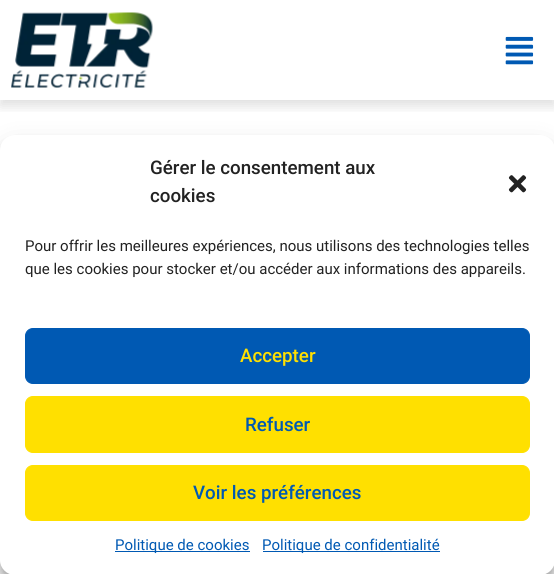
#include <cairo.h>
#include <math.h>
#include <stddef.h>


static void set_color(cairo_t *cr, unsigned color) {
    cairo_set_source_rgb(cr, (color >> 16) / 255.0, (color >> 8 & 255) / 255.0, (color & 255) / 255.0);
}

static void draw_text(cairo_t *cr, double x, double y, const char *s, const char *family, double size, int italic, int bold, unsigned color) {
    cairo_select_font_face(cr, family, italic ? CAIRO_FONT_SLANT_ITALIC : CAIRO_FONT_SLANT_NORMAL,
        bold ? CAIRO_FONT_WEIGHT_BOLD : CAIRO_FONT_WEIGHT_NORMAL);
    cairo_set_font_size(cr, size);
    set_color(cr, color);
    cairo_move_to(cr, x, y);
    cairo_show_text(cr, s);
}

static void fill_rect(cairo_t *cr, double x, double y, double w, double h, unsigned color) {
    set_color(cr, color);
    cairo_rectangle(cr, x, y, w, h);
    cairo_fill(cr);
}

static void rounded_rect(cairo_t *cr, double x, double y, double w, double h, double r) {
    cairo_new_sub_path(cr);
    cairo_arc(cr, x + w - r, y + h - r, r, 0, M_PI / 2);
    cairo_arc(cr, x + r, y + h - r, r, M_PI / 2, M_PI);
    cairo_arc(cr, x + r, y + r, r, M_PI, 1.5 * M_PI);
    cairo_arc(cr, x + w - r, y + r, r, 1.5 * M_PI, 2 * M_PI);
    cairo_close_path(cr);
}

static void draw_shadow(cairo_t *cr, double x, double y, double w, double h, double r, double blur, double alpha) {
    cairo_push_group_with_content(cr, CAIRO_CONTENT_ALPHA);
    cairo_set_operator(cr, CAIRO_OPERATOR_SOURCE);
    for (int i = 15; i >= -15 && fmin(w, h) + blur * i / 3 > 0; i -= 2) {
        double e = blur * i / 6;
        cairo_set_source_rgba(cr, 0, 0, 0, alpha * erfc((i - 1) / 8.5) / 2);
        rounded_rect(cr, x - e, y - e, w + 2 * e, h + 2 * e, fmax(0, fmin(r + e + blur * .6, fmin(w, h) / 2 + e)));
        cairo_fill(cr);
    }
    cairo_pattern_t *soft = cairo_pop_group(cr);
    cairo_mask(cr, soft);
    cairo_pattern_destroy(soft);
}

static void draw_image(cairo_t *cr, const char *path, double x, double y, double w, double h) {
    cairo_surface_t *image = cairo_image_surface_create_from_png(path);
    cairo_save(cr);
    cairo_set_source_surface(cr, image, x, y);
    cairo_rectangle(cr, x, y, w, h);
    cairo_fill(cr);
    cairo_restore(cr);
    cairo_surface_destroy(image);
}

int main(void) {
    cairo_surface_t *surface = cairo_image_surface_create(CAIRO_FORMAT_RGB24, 554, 574);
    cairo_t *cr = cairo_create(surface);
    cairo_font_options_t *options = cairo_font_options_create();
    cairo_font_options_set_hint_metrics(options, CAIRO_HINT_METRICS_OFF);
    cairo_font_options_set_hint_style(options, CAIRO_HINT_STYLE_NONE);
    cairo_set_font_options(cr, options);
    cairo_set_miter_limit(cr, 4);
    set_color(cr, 0xFFFFFF);
    cairo_paint(cr);
    cairo_save(cr);
    cairo_rectangle(cr, 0, 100, 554, 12);
    cairo_clip(cr);
    set_color(cr, 0x000000);
    draw_shadow(cr, 0, 6, 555, 100, 0, 6, 0.13);
    cairo_restore(cr);
    draw_image(cr, "assets/img1.png", 11, 12, 142, 76);
    draw_image(cr, "assets/img2.png", 505, 36, 29, 29);
    set_color(cr, 0x000000);
    draw_shadow(cr, 0, 143, 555, 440, 15, 4, 0.23);
    draw_shadow(cr, 0, 148, 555, 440, 15, 12.5, 0.19);
    set_color(cr, 0xFFFFFF);
    rounded_rect(cr, 0, 135, 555, 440, 15);
    cairo_fill(cr);
    draw_text(cr, 150, 174, "Gérer le consentement aux", "Roboto Medium", 18.75, 0, 0, 0x222222);
    draw_text(cr, 150, 202, "cookies", "Roboto Medium", 18.75, 0, 0, 0x222222);
    draw_image(cr, "assets/img3.png", 508, 175, 19, 18);
    draw_text(cr, 25, 251, "Pour offrir les meilleures expériences, nous utilisons des technologies telles", "Roboto", 15, 0, 0, 0x222222);
    draw_text(cr, 25, 274, "que les cookies pour stocker et/ou accéder aux informations des appareils.", "Roboto", 15, 0, 0, 0x222222);
    set_color(cr, 0x0059B3);
    rounded_rect(cr, 25.5, 328.5, 504, 55, 7.5);
    cairo_fill_preserve(cr);
    cairo_set_line_width(cr, 1);
    cairo_stroke(cr);
    draw_text(cr, 240, 362, "Accepter", "Roboto Medium", 18.75, 0, 0, 0xFFE000);
    rounded_rect(cr, 25.5, 396.5, 504, 56, 7.5);
    cairo_fill_preserve(cr);
    cairo_stroke(cr);
    draw_text(cr, 245, 431, "Refuser", "Roboto Medium", 18.75, 0, 0, 0x0059B3);
    set_color(cr, 0xFFE000);
    rounded_rect(cr, 25.5, 465.5, 504, 55, 7.5);
    cairo_fill_preserve(cr);
    cairo_stroke(cr);
    draw_text(cr, 193, 499, "Voir les préférences", "Roboto Medium", 18.75, 0, 0, 0x0059B3);
    fill_rect(cr, 115, 551, 135, 1, 0x0059B3);
    draw_text(cr, 115, 550, "Politique de cookies", "Roboto", 15, 0, 0, 0x0059B3);
    fill_rect(cr, 263, 551, 177, 1, 0x0059B3);
    draw_text(cr, 262, 550, "Politique de confidentialité", "Roboto", 15, 0, 0, 0x0059B3);
    cairo_surface_write_to_png(surface, "output.png");
    cairo_font_options_destroy(options);
    cairo_destroy(cr);
    cairo_surface_destroy(surface);
    return 0;
}
